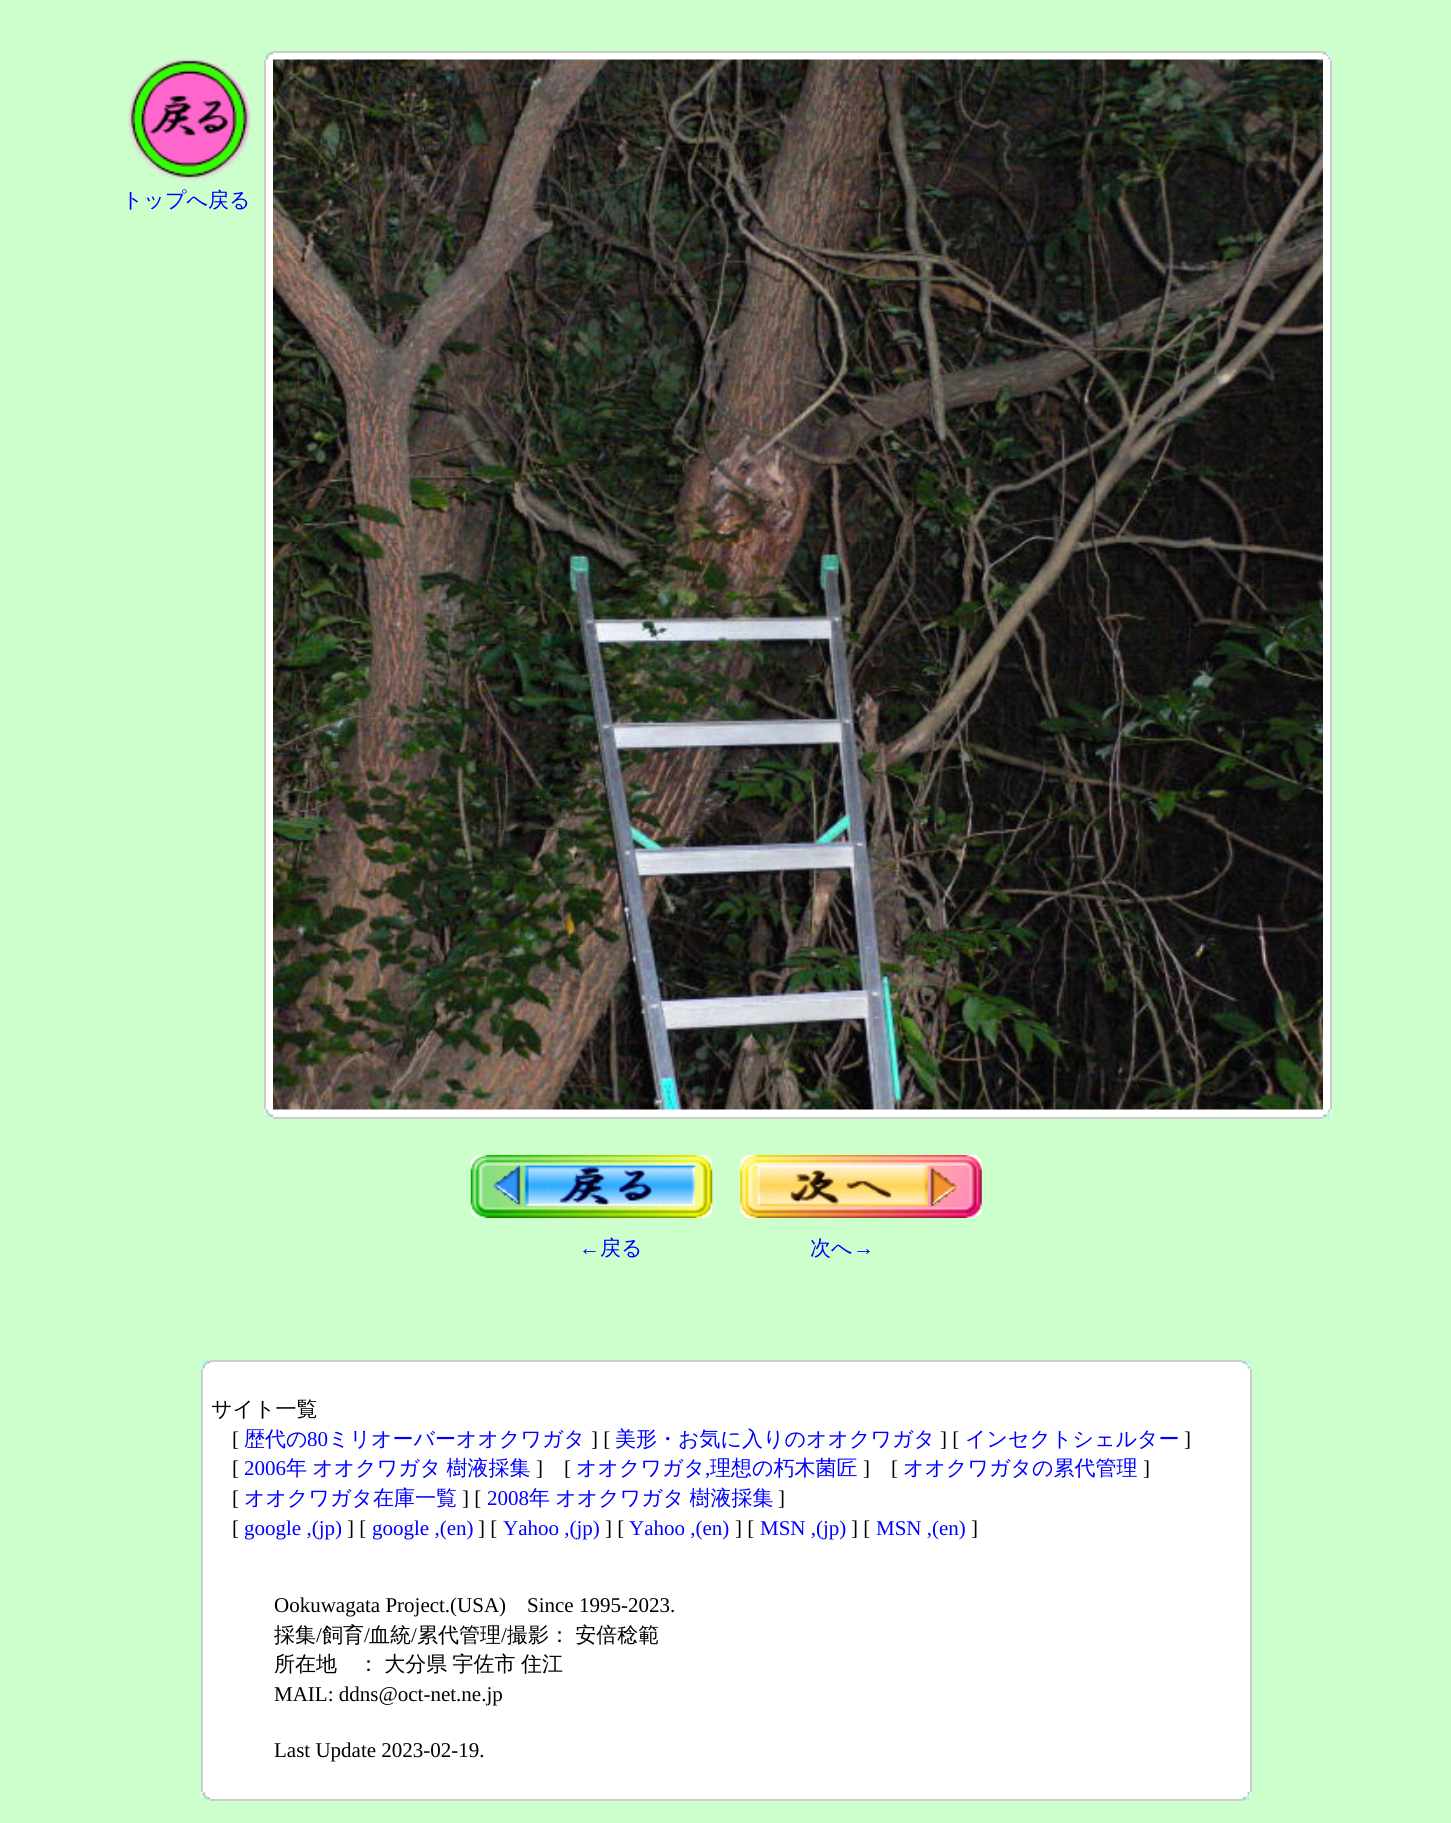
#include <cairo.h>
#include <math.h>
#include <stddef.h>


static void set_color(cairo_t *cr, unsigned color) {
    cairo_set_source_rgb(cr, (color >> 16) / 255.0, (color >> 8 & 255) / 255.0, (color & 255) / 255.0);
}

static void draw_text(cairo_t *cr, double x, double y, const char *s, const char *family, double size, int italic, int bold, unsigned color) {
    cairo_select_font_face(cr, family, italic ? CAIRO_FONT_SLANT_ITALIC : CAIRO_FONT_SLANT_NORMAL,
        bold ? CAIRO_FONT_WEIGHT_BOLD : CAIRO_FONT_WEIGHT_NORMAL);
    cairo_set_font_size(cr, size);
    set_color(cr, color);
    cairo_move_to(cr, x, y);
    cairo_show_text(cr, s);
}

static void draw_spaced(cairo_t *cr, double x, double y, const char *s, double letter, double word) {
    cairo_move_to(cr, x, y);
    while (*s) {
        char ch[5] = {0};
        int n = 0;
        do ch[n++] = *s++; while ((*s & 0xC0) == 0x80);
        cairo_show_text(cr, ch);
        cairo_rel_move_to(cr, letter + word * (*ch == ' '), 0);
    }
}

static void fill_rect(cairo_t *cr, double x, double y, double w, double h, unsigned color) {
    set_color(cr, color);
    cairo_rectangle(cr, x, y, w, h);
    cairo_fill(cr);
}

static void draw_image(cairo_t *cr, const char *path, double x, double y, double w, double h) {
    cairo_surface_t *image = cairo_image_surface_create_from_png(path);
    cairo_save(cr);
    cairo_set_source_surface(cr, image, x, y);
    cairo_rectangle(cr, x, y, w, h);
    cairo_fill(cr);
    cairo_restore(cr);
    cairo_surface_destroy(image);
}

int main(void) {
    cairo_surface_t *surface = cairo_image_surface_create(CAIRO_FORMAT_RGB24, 1451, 1823);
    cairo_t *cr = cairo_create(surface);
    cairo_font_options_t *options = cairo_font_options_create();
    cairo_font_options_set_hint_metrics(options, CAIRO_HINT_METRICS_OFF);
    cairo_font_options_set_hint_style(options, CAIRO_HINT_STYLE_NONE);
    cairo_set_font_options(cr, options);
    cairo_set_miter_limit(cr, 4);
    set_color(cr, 0xCCFFCC);
    cairo_paint(cr);
    draw_image(cr, "assets/img1.png", 127, 55, 126, 127);
    draw_text(cr, 122, 207, "トップへ戻る", "WenQuanYi Zen Hei Medium", 21, 0, 0, 0x0000FF);
    fill_rect(cr, 264, 51, 1068, 1067, 0xFFFFFF);
    draw_image(cr, "assets/img2.png", 264, 50, 9, 10);
    fill_rect(cr, 273, 51, 1050, 2, 0xCCCCCC);
    draw_image(cr, "assets/img3.png", 1323, 50, 9, 10);
    fill_rect(cr, 264, 60, 2, 1050, 0xCCCCCC);
    draw_image(cr, "assets/img4.png", 273, 59, 1050, 1051);
    fill_rect(cr, 1330, 60, 2, 1050, 0xCCCCCC);
    draw_image(cr, "assets/img5.png", 264, 1109, 9, 10);
    draw_image(cr, "assets/img6.png", 1323, 1109, 9, 10);
    fill_rect(cr, 273, 1117, 1050, 2, 0xCCCCCC);
    draw_image(cr, "assets/img7.png", 470, 1155, 243, 63);
    draw_image(cr, "assets/img8.png", 740, 1155, 242, 63);
    draw_text(cr, 579, 1255, "←", "Liberation Serif", 21, 0, 0, 0x0000FF);
    draw_text(cr, 600, 1255, "戻る", "WenQuanYi Zen Hei Medium", 21, 0, 0, 0x0000FF);
    draw_text(cr, 810, 1255, "次へ", "WenQuanYi Zen Hei Medium", 21, 0, 0, 0x0000FF);
    draw_text(cr, 853, 1255, "→", "Liberation Serif", 21, 0, 0, 0x0000FF);
    fill_rect(cr, 201, 1360, 1050, 441, 0xFFFFFF);
    draw_image(cr, "assets/img2.png", 201, 1359, 9, 10);
    fill_rect(cr, 210, 1360, 1033, 2, 0xCCCCCC);
    draw_image(cr, "assets/img9.png", 1242, 1359, 10, 10);
    fill_rect(cr, 201, 1369, 2, 423, 0xCCCCCC);
    draw_text(cr, 211, 1416, "サイト一覧", "WenQuanYi Zen Hei Medium", 21, 0, 0, 0x000000);
    draw_text(cr, 232, 1446, "[", "Liberation Serif", 21, 0, 0, 0x000000);
    draw_text(cr, 244, 1446, "歴代の", "WenQuanYi Zen Hei Medium", 21, 0, 0, 0x0000FF);
    draw_text(cr, 307, 1446, "80", "Liberation Serif", 21, 0, 0, 0x0000FF);
    draw_text(cr, 328, 1446, "ミリオーバーオオクワガタ", "WenQuanYi Zen Hei Medium", 21, 0, 0, 0x0000FF);
    draw_text(cr, 591, 1446, "] [", "Liberation Serif", 21, 0, 0, 0x000000);
    draw_text(cr, 615, 1446, "美形・お気に入りのオオクワガタ", "WenQuanYi Zen Hei Medium", 21, 0, 0, 0x0000FF);
    draw_text(cr, 940, 1446, "] [", "Liberation Serif", 21, 0, 0, 0x000000);
    draw_text(cr, 965, 1446, "インセクトシェルター", "WenQuanYi Zen Hei Medium", 21, 0, 0, 0x0000FF);
    draw_text(cr, 1184, 1446, "]", "Liberation Serif", 21, 0, 0, 0x000000);
    draw_text(cr, 232, 1475, "[", "Liberation Serif", 21, 0, 0, 0x000000);
    draw_text(cr, 244, 1475, "2006", "Liberation Serif", 21, 0, 0, 0x0000FF);
    cairo_select_font_face(cr, "WenQuanYi Zen Hei Medium", CAIRO_FONT_SLANT_NORMAL, CAIRO_FONT_WEIGHT_NORMAL);
    draw_spaced(cr, 286, 1475, "年 オオクワガタ 樹液採集", 0, -1);
    draw_text(cr, 536, 1475, "]", "Liberation Serif", 21, 0, 0, 0x000000);
    draw_text(cr, 564, 1475, "[", "Liberation Serif", 21, 0, 0, 0x000000);
    draw_text(cr, 576, 1475, "オオクワガタ", "WenQuanYi Zen Hei Medium", 21, 0, 0, 0x0000FF);
    draw_text(cr, 705, 1475, ",", "Liberation Serif", 21, 0, 0, 0x0000FF);
    draw_text(cr, 710, 1475, "理想の朽木菌匠", "WenQuanYi Zen Hei Medium", 21, 0, 0, 0x0000FF);
    draw_text(cr, 863, 1475, "]", "Liberation Serif", 21, 0, 0, 0x000000);
    draw_text(cr, 891, 1475, "[", "Liberation Serif", 21, 0, 0, 0x000000);
    draw_text(cr, 903, 1475, "オオクワガタの累代管理", "WenQuanYi Zen Hei Medium", 21, 0, 0, 0x0000FF);
    draw_text(cr, 1143, 1475, "]", "Liberation Serif", 21, 0, 0, 0x000000);
    draw_text(cr, 232, 1505, "[", "Liberation Serif", 21, 0, 0, 0x000000);
    draw_text(cr, 244, 1505, "オオクワガタ在庫一覧", "WenQuanYi Zen Hei Medium", 21, 0, 0, 0x0000FF);
    draw_text(cr, 462, 1505, "] [", "Liberation Serif", 21, 0, 0, 0x000000);
    draw_text(cr, 487, 1505, "2008", "Liberation Serif", 21, 0, 0, 0x0000FF);
    cairo_select_font_face(cr, "WenQuanYi Zen Hei Medium", CAIRO_FONT_SLANT_NORMAL, CAIRO_FONT_WEIGHT_NORMAL);
    draw_spaced(cr, 529, 1505, "年 オオクワガタ 樹液採集", 0, -1);
    draw_text(cr, 778, 1505, "]", "Liberation Serif", 21, 0, 0, 0x000000);
    draw_text(cr, 232, 1535, "[", "Liberation Serif", 21, 0, 0, 0x000000);
    draw_text(cr, 244, 1535, "google ,(jp)", "Liberation Serif", 21, 0, 0, 0x0000FF);
    draw_text(cr, 347, 1535, "] [", "Liberation Serif", 21, 0, 0, 0x000000);
    draw_text(cr, 372, 1535, "google ,(en)", "Liberation Serif", 21, 0, 0, 0x0000FF);
    draw_text(cr, 478, 1535, "] [", "Liberation Serif", 21, 0, 0, 0x000000);
    draw_text(cr, 503, 1535, "Yahoo ,(jp)", "Liberation Serif", 21, 0, 0, 0x0000FF);
    draw_text(cr, 605, 1535, "] [", "Liberation Serif", 21, 0, 0, 0x000000);
    draw_text(cr, 629, 1535, "Yahoo ,(en)", "Liberation Serif", 21, 0, 0, 0x0000FF);
    draw_text(cr, 735, 1535, "] [", "Liberation Serif", 21, 0, 0, 0x000000);
    draw_text(cr, 760, 1535, "MSN ,(jp)", "Liberation Serif", 21, 0, 0, 0x0000FF);
    draw_text(cr, 851, 1535, "] [", "Liberation Serif", 21, 0, 0, 0x000000);
    draw_text(cr, 876, 1535, "MSN ,(en)", "Liberation Serif", 21, 0, 0, 0x0000FF);
    draw_text(cr, 971, 1535, "]", "Liberation Serif", 21, 0, 0, 0x000000);
    draw_text(cr, 274, 1612, "Ookuwagata Project.(USA)", "Liberation Serif", 21, 0, 0, 0x000000);
    draw_text(cr, 527, 1612, "Since 1995-2023.", "Liberation Serif", 21, 0, 0, 0x000000);
    draw_text(cr, 274, 1642, "採集", "WenQuanYi Zen Hei Medium", 21, 0, 0, 0x000000);
    draw_text(cr, 316, 1642, "/", "Liberation Serif", 21, 0, 0, 0x000000);
    draw_text(cr, 322, 1642, "飼育", "WenQuanYi Zen Hei Medium", 21, 0, 0, 0x000000);
    draw_text(cr, 364, 1642, "/", "Liberation Serif", 21, 0, 0, 0x000000);
    draw_text(cr, 369, 1642, "血統", "WenQuanYi Zen Hei Medium", 21, 0, 0, 0x000000);
    draw_text(cr, 411, 1642, "/", "Liberation Serif", 21, 0, 0, 0x000000);
    draw_text(cr, 417, 1642, "累代管理", "WenQuanYi Zen Hei Medium", 21, 0, 0, 0x000000);
    draw_text(cr, 501, 1642, "/", "Liberation Serif", 21, 0, 0, 0x000000);
    cairo_select_font_face(cr, "WenQuanYi Zen Hei Medium", CAIRO_FONT_SLANT_NORMAL, CAIRO_FONT_WEIGHT_NORMAL);
    draw_spaced(cr, 507, 1642, "撮影： 安倍稔範", 0, -1);
    draw_spaced(cr, 274, 1671, "所在地　： 大分県 宇佐市 住江", 0, -1);
    draw_text(cr, 274, 1701, "MAIL: ddns@oct-net.ne.jp", "Liberation Serif", 21, 0, 0, 0x000000);
    draw_text(cr, 274, 1757, "Last Update 2023-02-19.", "Liberation Serif", 21, 0, 0, 0x000000);
    fill_rect(cr, 1250, 1369, 2, 423, 0xCCCCCC);
    draw_image(cr, "assets/img10.png", 201, 1792, 9, 9);
    fill_rect(cr, 210, 1799, 1033, 2, 0xCCCCCC);
    draw_image(cr, "assets/img11.png", 1242, 1792, 10, 9);
    cairo_surface_write_to_png(surface, "output.png");
    cairo_font_options_destroy(options);
    cairo_destroy(cr);
    cairo_surface_destroy(surface);
    return 0;
}
